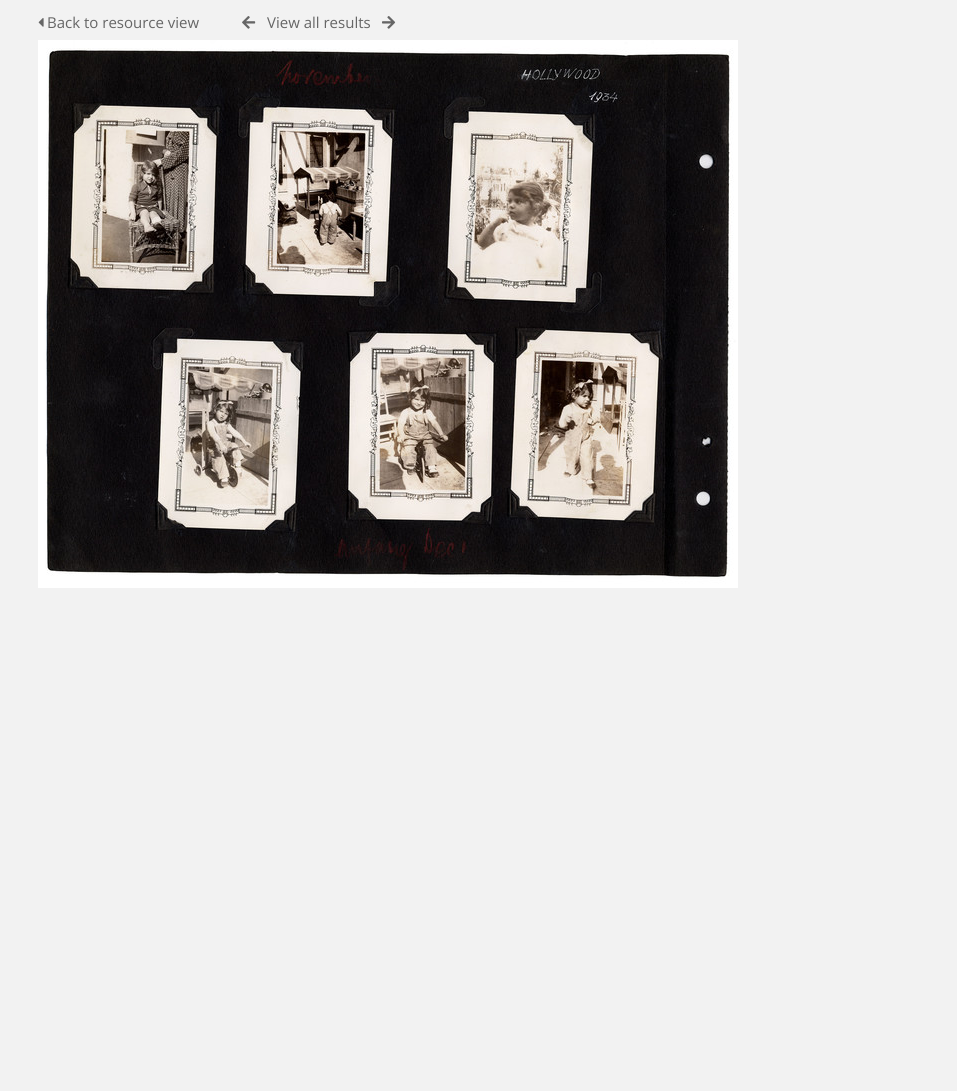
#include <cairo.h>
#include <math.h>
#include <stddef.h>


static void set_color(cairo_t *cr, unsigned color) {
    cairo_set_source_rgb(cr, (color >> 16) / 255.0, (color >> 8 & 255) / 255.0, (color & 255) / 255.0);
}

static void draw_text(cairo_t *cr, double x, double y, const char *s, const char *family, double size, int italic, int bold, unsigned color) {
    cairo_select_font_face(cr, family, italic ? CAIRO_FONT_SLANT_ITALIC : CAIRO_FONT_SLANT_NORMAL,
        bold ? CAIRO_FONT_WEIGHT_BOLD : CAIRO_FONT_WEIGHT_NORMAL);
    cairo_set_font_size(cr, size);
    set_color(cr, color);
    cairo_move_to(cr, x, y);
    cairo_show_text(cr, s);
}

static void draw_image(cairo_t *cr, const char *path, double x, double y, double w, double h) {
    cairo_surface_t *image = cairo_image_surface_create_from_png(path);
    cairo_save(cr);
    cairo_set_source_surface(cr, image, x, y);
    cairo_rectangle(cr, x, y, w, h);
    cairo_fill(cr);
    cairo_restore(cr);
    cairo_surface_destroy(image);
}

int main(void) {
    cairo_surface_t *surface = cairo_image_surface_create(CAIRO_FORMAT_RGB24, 957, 1091);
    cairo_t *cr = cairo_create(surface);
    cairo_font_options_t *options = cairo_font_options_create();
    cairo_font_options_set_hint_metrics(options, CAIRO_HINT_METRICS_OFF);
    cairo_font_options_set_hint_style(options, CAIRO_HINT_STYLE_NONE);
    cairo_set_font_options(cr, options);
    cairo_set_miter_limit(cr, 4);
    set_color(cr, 0xF2F2F2);
    cairo_paint(cr);
    draw_image(cr, "assets/img1.png", 38, 18, 6, 9);
    draw_text(cr, 47, 28, "Back to resource view", "Open Sans", 15, 0, 0, 0x666666);
    draw_image(cr, "assets/img2.png", 242, 16, 14, 13);
    draw_text(cr, 267, 28, "View all results", "Open Sans", 15, 0, 0, 0x666666);
    draw_image(cr, "assets/img3.png", 382, 16, 14, 13);
    draw_image(cr, "assets/img4.png", 38, 40, 700, 548);
    cairo_surface_write_to_png(surface, "output.png");
    cairo_font_options_destroy(options);
    cairo_destroy(cr);
    cairo_surface_destroy(surface);
    return 0;
}
